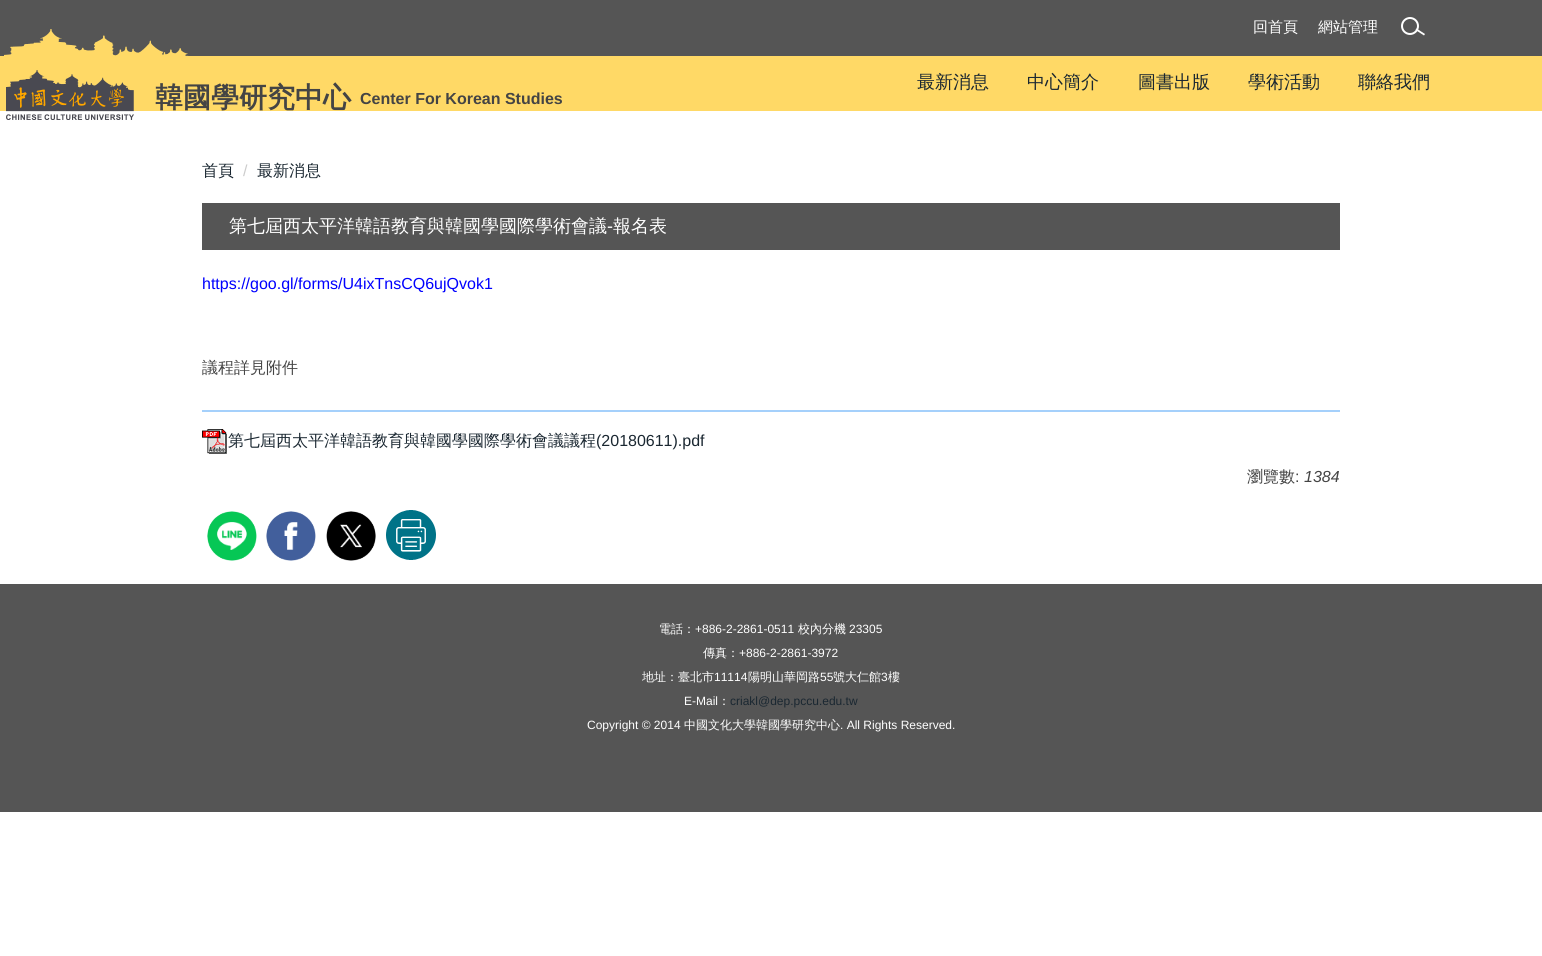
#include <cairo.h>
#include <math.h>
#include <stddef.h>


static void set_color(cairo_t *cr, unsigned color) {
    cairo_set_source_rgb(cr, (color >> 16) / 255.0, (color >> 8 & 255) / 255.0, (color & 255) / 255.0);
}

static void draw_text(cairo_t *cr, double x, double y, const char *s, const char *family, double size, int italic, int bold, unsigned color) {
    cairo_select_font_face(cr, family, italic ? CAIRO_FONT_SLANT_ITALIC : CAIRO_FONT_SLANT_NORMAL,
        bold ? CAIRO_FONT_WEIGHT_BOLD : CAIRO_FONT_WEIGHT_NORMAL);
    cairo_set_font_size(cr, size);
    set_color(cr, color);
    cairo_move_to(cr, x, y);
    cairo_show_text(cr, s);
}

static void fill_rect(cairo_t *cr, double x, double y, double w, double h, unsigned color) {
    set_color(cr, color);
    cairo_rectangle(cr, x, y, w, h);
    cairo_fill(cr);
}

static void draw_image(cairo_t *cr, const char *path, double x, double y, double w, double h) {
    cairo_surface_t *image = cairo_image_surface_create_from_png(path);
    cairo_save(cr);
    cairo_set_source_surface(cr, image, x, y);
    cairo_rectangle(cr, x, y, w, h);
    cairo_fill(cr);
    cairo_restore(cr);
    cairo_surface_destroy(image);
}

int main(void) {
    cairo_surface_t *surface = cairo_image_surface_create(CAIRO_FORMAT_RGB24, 1542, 956);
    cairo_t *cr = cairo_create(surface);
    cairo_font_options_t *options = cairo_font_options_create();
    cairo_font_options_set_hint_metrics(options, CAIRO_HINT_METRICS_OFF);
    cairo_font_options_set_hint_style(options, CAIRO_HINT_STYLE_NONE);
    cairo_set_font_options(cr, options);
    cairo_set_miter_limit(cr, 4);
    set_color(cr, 0xFFFFFF);
    cairo_paint(cr);
    fill_rect(cr, 0, 0, 1542, 56, 0x555555);
    cairo_arc(cr, 1410, 26, 8, 0, 2 * M_PI);
    set_color(cr, 0xFFFFFF);
    cairo_stroke(cr);
    cairo_new_path(cr);
    cairo_move_to(cr, 1416.5, 28.5);
    cairo_line_to(cr, 1425, 34);
    cairo_line_to(cr, 1424, 35.5);
    cairo_line_to(cr, 1415.5, 30);
    cairo_close_path(cr);
    cairo_fill(cr);
    draw_text(cr, 1253, 32, "回首頁", "WenQuanYi Zen Hei Medium", 15, 0, 0, 0xFFFFFF);
    draw_text(cr, 1318, 32, "網站管理", "WenQuanYi Zen Hei Medium", 15, 0, 0, 0xFFFFFF);
    fill_rect(cr, 0, 56, 1542, 55, 0xFFD966);
    draw_text(cr, 917, 88, "最新消息", "WenQuanYi Zen Hei Medium", 18, 0, 0, 0x1A2731);
    draw_text(cr, 1027, 88, "中心簡介", "WenQuanYi Zen Hei Medium", 18, 0, 0, 0x1A2731);
    draw_text(cr, 1138, 88, "圖書出版", "WenQuanYi Zen Hei Medium", 18, 0, 0, 0x1A2731);
    draw_text(cr, 1248, 88, "學術活動", "WenQuanYi Zen Hei Medium", 18, 0, 0, 0x1A2731);
    draw_text(cr, 1358, 88, "聯絡我們", "WenQuanYi Zen Hei Medium", 18, 0, 0, 0x1A2731);
    draw_image(cr, "assets/img1.png", 4, 29, 185, 27);
    draw_image(cr, "assets/img2.png", 6, 70, 128, 50);
    draw_text(cr, 155, 107, "韓國學研究中心", "WenQuanYi Zen Hei", 28, 0, 1, 0x444444);
    draw_text(cr, 360, 104, "Center For Korean Studies", "Liberation Sans", 16, 0, 1, 0x444444);
    draw_text(cr, 202, 176, "首頁", "WenQuanYi Zen Hei Medium", 16, 0, 0, 0x1A2731);
    draw_text(cr, 243, 176, "/", "Liberation Sans", 16, 0, 0, 0xCCCCCC);
    draw_text(cr, 257, 176, "最新消息", "WenQuanYi Zen Hei Medium", 16, 0, 0, 0x1A2731);
    fill_rect(cr, 202, 203, 1138, 47, 0x555555);
    draw_text(cr, 229, 232, "第七屆西太平洋韓語教育與韓國學國際學術會議", "WenQuanYi Zen Hei Medium", 18, 0, 0, 0xFFFFFF);
    draw_text(cr, 607, 232, "-", "Liberation Sans", 18, 0, 0, 0xFFFFFF);
    draw_text(cr, 613, 232, "報名表", "WenQuanYi Zen Hei Medium", 18, 0, 0, 0xFFFFFF);
    draw_text(cr, 202, 289, "https://goo.gl/forms/U4ixTnsCQ6ujQvok1", "Liberation Sans", 16, 0, 0, 0x0000FF);
    draw_text(cr, 202, 373, "議程詳見附件", "WenQuanYi Zen Hei Medium", 16, 0, 0, 0x444444);
    fill_rect(cr, 202, 410, 1138, 2, 0xA5D0FB);
    draw_image(cr, "assets/img3.png", 202, 429, 25, 25);
    draw_text(cr, 228, 446, "第七屆西太平洋韓語教育與韓國學國際學術會議議程", "WenQuanYi Zen Hei Medium", 16, 0, 0, 0x1A2731);
    draw_text(cr, 596, 446, "(20180611).pdf", "Liberation Sans", 16, 0, 0, 0x1A2731);
    draw_text(cr, 1247, 482, "瀏覽數", "WenQuanYi Zen Hei Medium", 16, 0, 0, 0x444444);
    draw_text(cr, 1295, 482, ":", "Liberation Sans", 16, 0, 0, 0x444444);
    draw_text(cr, 1304, 482, "1384", "Liberation Sans", 16, 1, 0, 0x444444);
    draw_image(cr, "assets/img4.png", 207, 511, 50, 50);
    draw_image(cr, "assets/img5.png", 266, 511, 50, 50);
    draw_image(cr, "assets/img6.png", 326, 511, 50, 50);
    draw_image(cr, "assets/img7.png", 386, 510, 50, 50);
    fill_rect(cr, 0, 584, 1542, 228, 0x555555);
    draw_text(cr, 659, 633, "電話：", "WenQuanYi Zen Hei Medium", 12, 0, 0, 0xFFFFFF);
    draw_text(cr, 695, 633, "+886-2-2861-0511", "Liberation Sans", 12, 0, 0, 0xFFFFFF);
    draw_text(cr, 798, 633, "校內分機", "WenQuanYi Zen Hei Medium", 12, 0, 0, 0xFFFFFF);
    draw_text(cr, 849, 633, "23305", "Liberation Sans", 12, 0, 0, 0xFFFFFF);
    draw_text(cr, 703, 657, "傳真：", "WenQuanYi Zen Hei Medium", 12, 0, 0, 0xFFFFFF);
    draw_text(cr, 739, 657, "+886-2-2861-3972", "Liberation Sans", 12, 0, 0, 0xFFFFFF);
    draw_text(cr, 642, 681, "地址：臺北市", "WenQuanYi Zen Hei Medium", 12, 0, 0, 0xFFFFFF);
    draw_text(cr, 714, 681, "11114", "Liberation Sans", 12, 0, 0, 0xFFFFFF);
    draw_text(cr, 748, 681, "陽明山華岡路", "WenQuanYi Zen Hei Medium", 12, 0, 0, 0xFFFFFF);
    draw_text(cr, 820, 681, "55", "Liberation Sans", 12, 0, 0, 0xFFFFFF);
    draw_text(cr, 833, 681, "號大仁館", "WenQuanYi Zen Hei Medium", 12, 0, 0, 0xFFFFFF);
    draw_text(cr, 881, 681, "3", "Liberation Sans", 12, 0, 0, 0xFFFFFF);
    draw_text(cr, 888, 681, "樓", "WenQuanYi Zen Hei Medium", 12, 0, 0, 0xFFFFFF);
    draw_text(cr, 684, 705, "E-Mail", "Liberation Sans", 12, 0, 0, 0xFFFFFF);
    draw_text(cr, 718, 705, "：", "WenQuanYi Zen Hei Medium", 12, 0, 0, 0xFFFFFF);
    draw_text(cr, 730, 705, "criakl@dep.pccu.edu.tw", "Liberation Sans", 12, 0, 0, 0x1A2731);
    draw_text(cr, 587, 729, "Copyright © 2014", "Liberation Sans", 12, 0, 0, 0xFFFFFF);
    draw_text(cr, 684, 729, "中國文化大學韓國學研究中心", "WenQuanYi Zen Hei Medium", 12, 0, 0, 0xFFFFFF);
    draw_text(cr, 840, 729, ". All Rights Reserved.", "Liberation Sans", 12, 0, 0, 0xFFFFFF);
    cairo_surface_write_to_png(surface, "output.png");
    cairo_font_options_destroy(options);
    cairo_destroy(cr);
    cairo_surface_destroy(surface);
    return 0;
}
